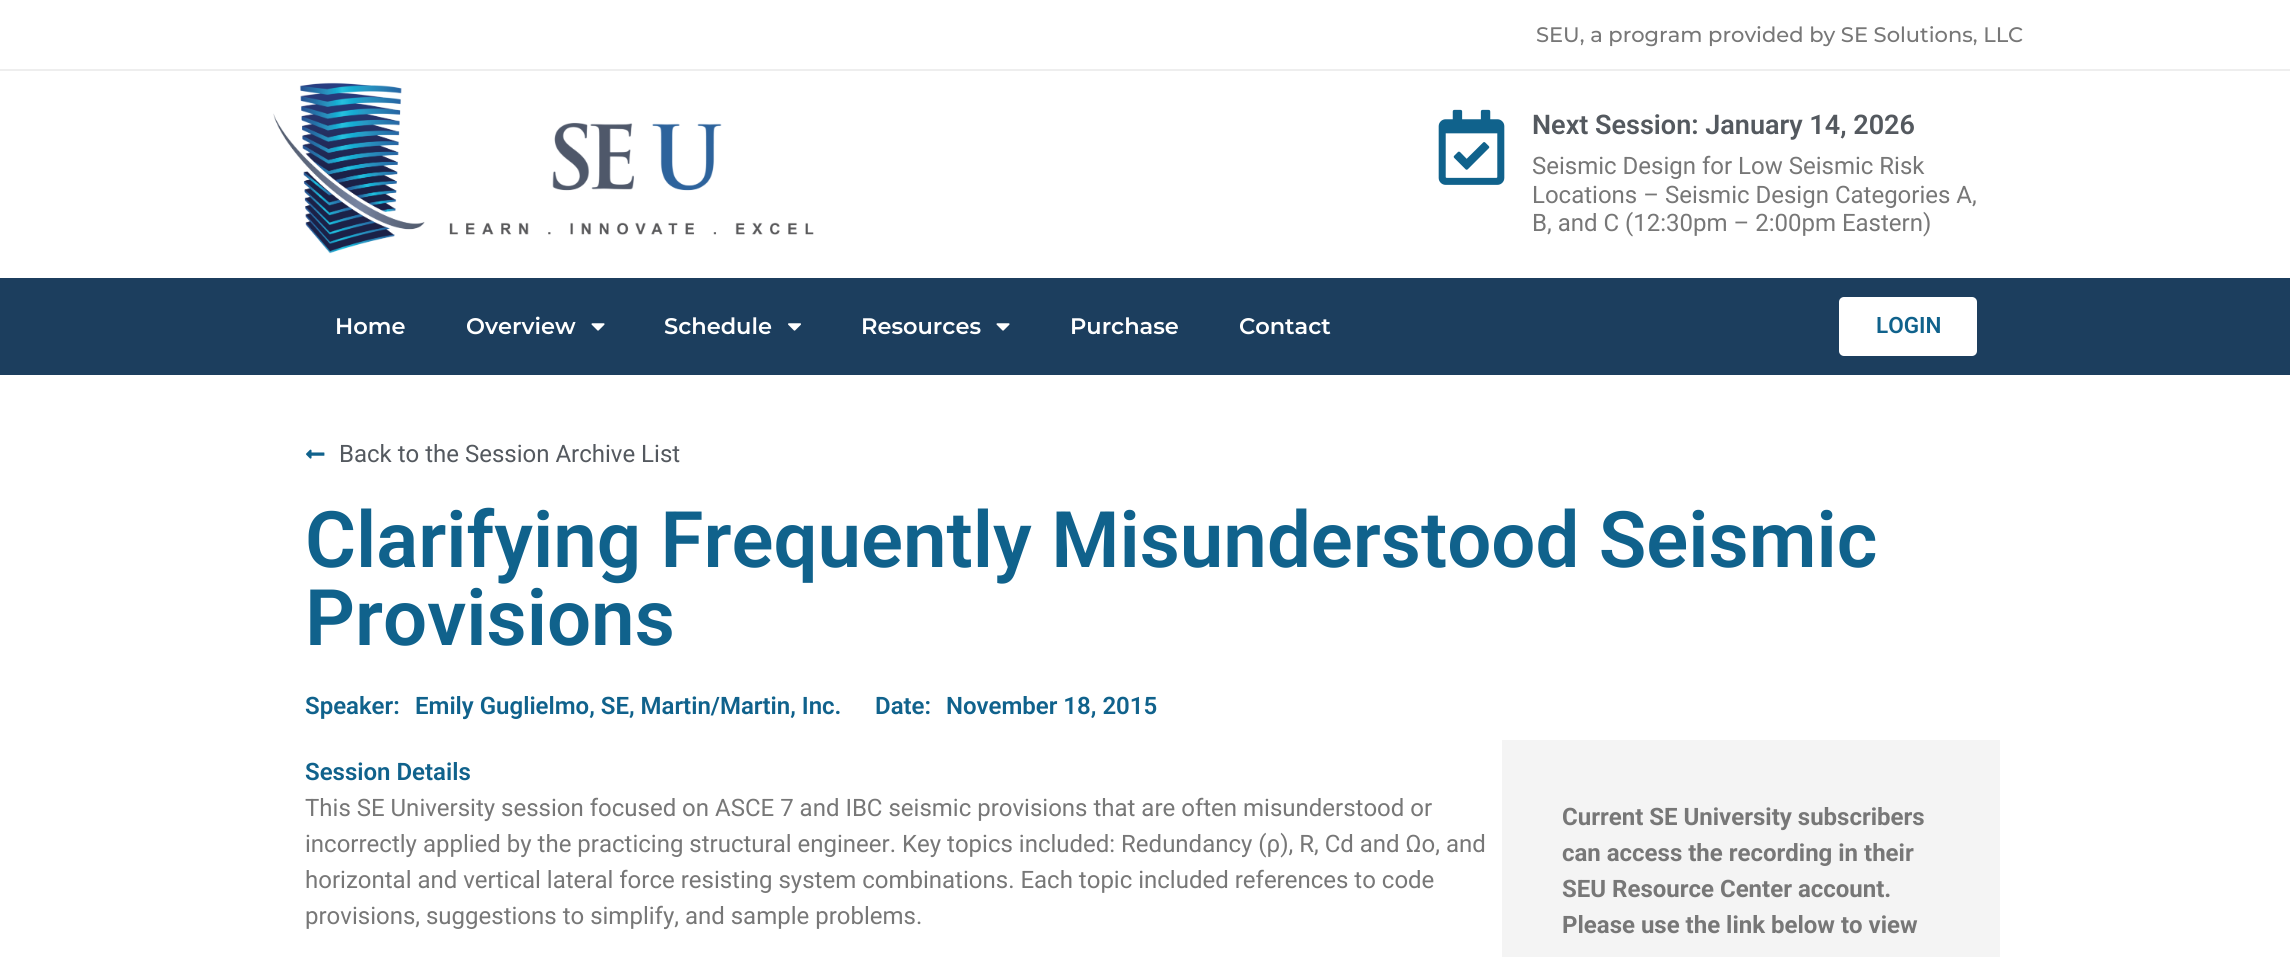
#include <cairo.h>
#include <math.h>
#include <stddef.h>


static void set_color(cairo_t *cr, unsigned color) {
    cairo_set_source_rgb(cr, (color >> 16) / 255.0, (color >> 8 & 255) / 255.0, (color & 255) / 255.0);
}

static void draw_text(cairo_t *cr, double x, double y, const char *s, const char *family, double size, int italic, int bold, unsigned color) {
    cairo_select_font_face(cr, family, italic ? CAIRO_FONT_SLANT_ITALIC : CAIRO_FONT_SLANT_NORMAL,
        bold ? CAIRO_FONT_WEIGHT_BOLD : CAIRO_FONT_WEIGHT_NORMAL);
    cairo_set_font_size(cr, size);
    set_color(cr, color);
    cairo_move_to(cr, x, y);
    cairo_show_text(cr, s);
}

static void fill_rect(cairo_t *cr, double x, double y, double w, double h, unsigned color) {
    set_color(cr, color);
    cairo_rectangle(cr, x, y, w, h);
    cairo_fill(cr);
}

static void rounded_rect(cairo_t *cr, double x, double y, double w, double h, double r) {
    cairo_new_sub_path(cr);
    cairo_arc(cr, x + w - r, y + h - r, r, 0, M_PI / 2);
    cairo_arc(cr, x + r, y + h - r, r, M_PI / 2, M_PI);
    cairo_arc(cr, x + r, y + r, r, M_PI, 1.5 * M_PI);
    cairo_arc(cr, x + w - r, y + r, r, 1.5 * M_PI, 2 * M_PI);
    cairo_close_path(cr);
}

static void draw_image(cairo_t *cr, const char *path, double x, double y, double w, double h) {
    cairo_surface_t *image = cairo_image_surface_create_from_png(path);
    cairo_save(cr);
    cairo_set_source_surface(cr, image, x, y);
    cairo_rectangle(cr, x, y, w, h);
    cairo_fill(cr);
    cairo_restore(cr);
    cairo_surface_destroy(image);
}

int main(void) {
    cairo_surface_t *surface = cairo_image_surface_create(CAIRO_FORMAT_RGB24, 2290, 957);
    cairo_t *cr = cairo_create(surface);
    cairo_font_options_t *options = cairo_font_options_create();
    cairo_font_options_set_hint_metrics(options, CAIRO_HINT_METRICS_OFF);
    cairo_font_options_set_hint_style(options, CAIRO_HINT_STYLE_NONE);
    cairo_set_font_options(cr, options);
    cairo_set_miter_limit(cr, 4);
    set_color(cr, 0xFFFFFF);
    cairo_paint(cr);
    fill_rect(cr, 0, 69, 2290, 2, 0xEEEEEE);
    draw_text(cr, 1536, 42, "SEU, a program provided by SE Solutions, LLC", "Montserrat Medium", 21, 0, 0, 0x777777);
    draw_image(cr, "assets/img1.png", 273, 82, 541, 172);
    draw_image(cr, "assets/img2.png", 1438, 109, 67, 76);
    draw_text(cr, 1532, 134, "Next Session: January 14, 2026", "Roboto SemiBold", 27, 0, 0, 0x54595F);
    draw_text(cr, 1532, 174, "Seismic Design for Low Seismic Risk", "Roboto", 24, 0, 0, 0x777777);
    draw_text(cr, 1532, 203, "Locations – Seismic Design Categories A,", "Roboto", 24, 0, 0, 0x777777);
    draw_text(cr, 1532, 231, "B, and C (12:30pm – 2:00pm Eastern)", "Roboto", 24, 0, 0, 0x777777);
    fill_rect(cr, 0, 278, 2290, 97, 0x1C3E5E);
    draw_text(cr, 335, 334, "Home", "Montserrat SemiBold", 22.5, 0, 0, 0xFFFFFF);
    draw_text(cr, 466, 334, "Overview", "Montserrat SemiBold", 22.5, 0, 0, 0xFFFFFF);
    draw_image(cr, "assets/img3.png", 591, 323, 14, 8);
    draw_text(cr, 664, 334, "Schedule", "Montserrat SemiBold", 22.5, 0, 0, 0xFFFFFF);
    draw_image(cr, "assets/img4.png", 788, 323, 13, 8);
    draw_text(cr, 861, 334, "Resources", "Montserrat SemiBold", 22.5, 0, 0, 0xFFFFFF);
    draw_image(cr, "assets/img3.png", 996, 323, 14, 8);
    draw_text(cr, 1070, 334, "Purchase", "Montserrat SemiBold", 22.5, 0, 0, 0xFFFFFF);
    draw_text(cr, 1239, 334, "Contact", "Montserrat SemiBold", 22.5, 0, 0, 0xFFFFFF);
    rounded_rect(cr, 1839, 297, 138, 59, 5);
    cairo_fill(cr);
    draw_text(cr, 1876, 333, "LOGIN", "Roboto SemiBold", 22.5, 0, 0, 0x10628C);
    draw_image(cr, "assets/img5.png", 306, 449, 19, 10);
    draw_text(cr, 339, 462, "Back to the Session Archive List", "Roboto", 24, 0, 0, 0x54595F);
    draw_text(cr, 305, 567, "Clarifying Frequently Misunderstood Seismic", "Roboto SemiBold", 78, 0, 0, 0x10628C);
    draw_text(cr, 305, 645, "Provisions", "Roboto SemiBold", 78, 0, 0, 0x10628C);
    draw_text(cr, 305, 714, "Speaker:", "Roboto SemiBold", 24, 0, 0, 0x10628C);
    draw_text(cr, 415, 714, "Emily Guglielmo, SE, Martin/Martin, Inc.", "Roboto SemiBold", 24, 0, 0, 0x10628C);
    draw_text(cr, 875, 714, "Date:", "Roboto SemiBold", 24, 0, 0, 0x10628C);
    draw_text(cr, 946, 714, "November 18, 2015", "Roboto SemiBold", 24, 0, 0, 0x10628C);
    draw_text(cr, 305, 780, "Session Details", "Roboto SemiBold", 24, 0, 0, 0x10628C);
    draw_text(cr, 305, 816, "This SE University session focused on ASCE 7 and IBC seismic provisions that are often misunderstood or", "Roboto", 24, 0, 0, 0x777777);
    draw_text(cr, 305, 852, "incorrectly applied by the practicing structural engineer. Key topics included: Redundancy (ρ), R, Cd and Ωo, and", "Roboto", 24, 0, 0, 0x777777);
    draw_text(cr, 305, 888, "horizontal and vertical lateral force resisting system combinations. Each topic included references to code", "Roboto", 24, 0, 0, 0x777777);
    draw_text(cr, 305, 924, "provisions, suggestions to simplify, and sample problems.", "Roboto", 24, 0, 0, 0x777777);
    fill_rect(cr, 1502, 740, 498, 217, 0xF4F4F4);
    draw_text(cr, 1562, 825, "Current SE University subscribers", "Roboto", 24, 0, 1, 0x777777);
    draw_text(cr, 1562, 861, "can access the recording in their", "Roboto", 24, 0, 1, 0x777777);
    draw_text(cr, 1562, 897, "SEU Resource Center account.", "Roboto", 24, 0, 1, 0x777777);
    draw_text(cr, 1562, 933, "Please use the link below to view", "Roboto", 24, 0, 1, 0x777777);
    cairo_surface_write_to_png(surface, "output.png");
    cairo_font_options_destroy(options);
    cairo_destroy(cr);
    cairo_surface_destroy(surface);
    return 0;
}
